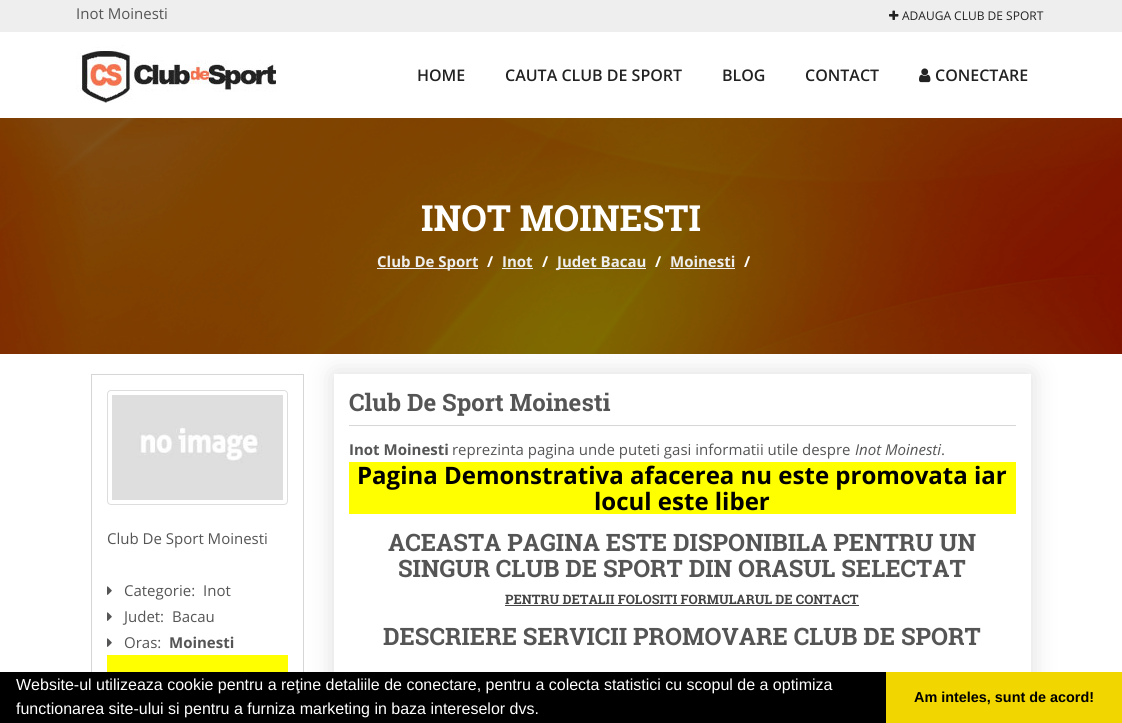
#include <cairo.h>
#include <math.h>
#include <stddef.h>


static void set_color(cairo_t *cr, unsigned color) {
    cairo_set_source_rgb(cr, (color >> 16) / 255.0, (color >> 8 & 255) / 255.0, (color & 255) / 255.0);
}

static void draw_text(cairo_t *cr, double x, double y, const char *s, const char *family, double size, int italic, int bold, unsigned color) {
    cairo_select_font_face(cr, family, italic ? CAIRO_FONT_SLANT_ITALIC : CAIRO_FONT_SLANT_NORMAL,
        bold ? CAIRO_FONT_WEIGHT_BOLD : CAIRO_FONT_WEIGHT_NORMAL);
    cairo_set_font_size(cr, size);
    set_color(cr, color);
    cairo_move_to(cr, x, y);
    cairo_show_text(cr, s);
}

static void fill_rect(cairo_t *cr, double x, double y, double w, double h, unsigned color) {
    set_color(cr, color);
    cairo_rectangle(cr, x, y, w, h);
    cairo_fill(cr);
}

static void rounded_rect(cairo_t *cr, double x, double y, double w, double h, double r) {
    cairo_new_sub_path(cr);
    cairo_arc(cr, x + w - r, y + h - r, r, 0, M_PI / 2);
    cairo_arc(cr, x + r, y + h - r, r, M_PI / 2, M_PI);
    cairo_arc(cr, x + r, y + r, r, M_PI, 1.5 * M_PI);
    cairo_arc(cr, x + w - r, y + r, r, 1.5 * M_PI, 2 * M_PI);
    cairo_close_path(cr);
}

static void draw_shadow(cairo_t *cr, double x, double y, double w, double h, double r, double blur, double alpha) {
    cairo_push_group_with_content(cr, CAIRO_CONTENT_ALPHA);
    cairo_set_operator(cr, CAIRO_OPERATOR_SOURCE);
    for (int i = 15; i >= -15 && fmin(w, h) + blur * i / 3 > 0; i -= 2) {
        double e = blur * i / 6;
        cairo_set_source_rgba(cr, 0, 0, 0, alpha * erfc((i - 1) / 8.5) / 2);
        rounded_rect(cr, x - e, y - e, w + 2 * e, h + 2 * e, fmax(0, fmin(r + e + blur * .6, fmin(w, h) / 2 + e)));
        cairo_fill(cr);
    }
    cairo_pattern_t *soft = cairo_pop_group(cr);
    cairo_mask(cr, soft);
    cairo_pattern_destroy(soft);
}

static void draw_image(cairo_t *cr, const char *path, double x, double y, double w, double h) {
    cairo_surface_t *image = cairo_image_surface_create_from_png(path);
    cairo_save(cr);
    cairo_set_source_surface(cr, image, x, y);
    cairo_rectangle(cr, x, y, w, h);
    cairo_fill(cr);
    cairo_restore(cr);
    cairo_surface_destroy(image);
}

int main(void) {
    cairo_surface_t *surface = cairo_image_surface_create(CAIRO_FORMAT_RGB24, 1122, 723);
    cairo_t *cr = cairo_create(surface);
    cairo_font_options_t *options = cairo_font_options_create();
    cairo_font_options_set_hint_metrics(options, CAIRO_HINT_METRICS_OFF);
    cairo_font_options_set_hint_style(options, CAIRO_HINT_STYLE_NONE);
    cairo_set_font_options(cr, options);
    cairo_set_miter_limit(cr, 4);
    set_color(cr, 0xFFFFFF);
    cairo_paint(cr);
    fill_rect(cr, 0, 0, 1122, 32, 0xEEEEEE);
    draw_text(cr, 76, 19, "Inot Moinesti", "Open Sans", 15, 0, 0, 0x555555);
    draw_image(cr, "assets/img1.png", 889, 10, 10, 10);
    draw_text(cr, 902, 20, "ADAUGA CLUB DE SPORT", "Open Sans", 12, 0, 0, 0x222222);
    draw_image(cr, "assets/img2.png", 76, 45, 200, 58);
    draw_text(cr, 417, 81, "HOME", "Open Sans SemiBold", 16, 0, 0, 0x222222);
    draw_text(cr, 505, 81, "CAUTA CLUB DE SPORT", "Open Sans SemiBold", 16, 0, 0, 0x222222);
    draw_text(cr, 722, 81, "BLOG", "Open Sans SemiBold", 16, 0, 0, 0x222222);
    draw_text(cr, 805, 81, "CONTACT", "Open Sans SemiBold", 16, 0, 0, 0x222222);
    draw_image(cr, "assets/img3.png", 919, 68, 12, 15);
    draw_text(cr, 935, 81, "CONECTARE", "Open Sans SemiBold", 16, 0, 0, 0x222222);
    cairo_rectangle(cr, 91.5, 374.5, 212, 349);
    set_color(cr, 0xD6D6D6);
    cairo_set_line_width(cr, 1);
    cairo_stroke(cr);
    cairo_save(cr);
    cairo_set_fill_rule(cr, CAIRO_FILL_RULE_EVEN_ODD);
    cairo_new_path(cr);
    cairo_move_to(cr, 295, 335);
    cairo_line_to(cr, 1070, 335);
    cairo_line_to(cr, 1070, 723);
    cairo_line_to(cr, 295, 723);
    cairo_close_path(cr);
    cairo_move_to(cr, 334, 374);
    cairo_line_to(cr, 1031, 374);
    cairo_line_to(cr, 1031, 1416);
    cairo_line_to(cr, 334, 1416);
    cairo_close_path(cr);
    cairo_clip(cr);
    set_color(cr, 0xDDDDDD);
    draw_shadow(cr, 334, 374, 697, 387, 0, 12.5, 1);
    cairo_restore(cr);
    draw_image(cr, "assets/img4.png", 0, 118, 1122, 236);
    draw_text(cr, 421, 231, "INOT MOINESTI", "Roboto Slab", 36, 0, 1, 0xFFFFFF);
    fill_rect(cr, 377, 268, 101, 1, 0xEEEEEE);
    draw_text(cr, 377, 267, "Club De Sport", "Open Sans", 15, 0, 1, 0xEEEEEE);
    draw_text(cr, 487, 267, "/", "Open Sans", 15, 0, 1, 0xFFFFFF);
    draw_text(cr, 502, 267, "Inot", "Open Sans", 15, 0, 1, 0xEEEEEE);
    fill_rect(cr, 502, 268, 31, 1, 0xEEEEEE);
    draw_text(cr, 542, 267, "/", "Open Sans", 15, 0, 1, 0xFFFFFF);
    fill_rect(cr, 557, 268, 89, 1, 0xEEEEEE);
    draw_text(cr, 557, 267, "Judet Bacau", "Open Sans", 15, 0, 1, 0xEEEEEE);
    draw_text(cr, 655, 267, "/", "Open Sans", 15, 0, 1, 0xFFFFFF);
    draw_text(cr, 670, 267, "Moinesti", "Open Sans", 15, 0, 1, 0xEEEEEE);
    fill_rect(cr, 670, 268, 65, 1, 0xEEEEEE);
    draw_text(cr, 744, 267, "/", "Open Sans", 15, 0, 1, 0xFFFFFF);
    rounded_rect(cr, 107.5, 390.5, 180, 114, 3.5);
    set_color(cr, 0xDDDDDD);
    cairo_stroke(cr);
    draw_image(cr, "assets/img5.png", 112, 395, 171, 105);
    draw_text(cr, 107, 544, "Club De Sport Moinesti", "Open Sans", 15, 0, 0, 0x555555);
    draw_image(cr, "assets/img6.png", 107, 586, 5, 9);
    draw_text(cr, 124, 596, "Categorie:", "Open Sans", 15, 0, 0, 0x555555);
    draw_text(cr, 203, 596, "Inot", "Open Sans", 15, 0, 0, 0x555555);
    draw_image(cr, "assets/img6.png", 107, 612, 5, 9);
    draw_text(cr, 124, 622, "Judet:", "Open Sans", 15, 0, 0, 0x555555);
    draw_text(cr, 172, 622, "Bacau", "Open Sans", 15, 0, 0, 0x555555);
    draw_image(cr, "assets/img6.png", 107, 638, 5, 9);
    draw_text(cr, 124, 648, "Oras:", "Open Sans", 15, 0, 0, 0x555555);
    draw_text(cr, 169, 648, "Moinesti", "Open Sans", 15, 0, 1, 0x555555);
    fill_rect(cr, 107, 655, 181, 17, 0xFFFF00);
    fill_rect(cr, 349, 425, 667, 1, 0xD6D6D6);
    draw_text(cr, 349, 411, "Club De Sport Moinesti", "Roboto Slab", 24, 0, 1, 0x555555);
    draw_text(cr, 349, 455, "Inot Moinesti", "Open Sans", 15, 0, 1, 0x555555);
    draw_text(cr, 452, 455, "reprezinta pagina unde puteti gasi informatii utile despre", "Open Sans", 15, 0, 0, 0x555555);
    draw_text(cr, 855, 455, "Inot Moinesti", "Open Sans", 15, 1, 0, 0x555555);
    draw_text(cr, 941, 455, ".", "Open Sans", 15, 0, 0, 0x555555);
    fill_rect(cr, 349, 462, 667, 52, 0xFFFF00);
    draw_text(cr, 357, 484, "Pagina Demonstrativa afacerea nu este promovata iar", "Open Sans", 24, 0, 1, 0x000000);
    draw_text(cr, 594, 510, "locul este liber", "Open Sans", 24, 0, 1, 0x000000);
    draw_text(cr, 388, 551, "ACEASTA PAGINA ESTE DISPONIBILA PENTRU UN", "Roboto Slab", 24, 0, 1, 0x555555);
    draw_text(cr, 398, 577, "SINGUR CLUB DE SPORT DIN ORASUL SELECTAT", "Roboto Slab", 24, 0, 1, 0x555555);
    draw_text(cr, 505, 604, "PENTRU DETALII FOLOSITI FORMULARUL DE CONTACT", "Roboto Slab", 13, 0, 1, 0x444444);
    fill_rect(cr, 505, 605, 354, 1, 0x444444);
    draw_text(cr, 383, 645, "DESCRIERE SERVICII PROMOVARE CLUB DE SPORT", "Roboto Slab", 24, 0, 1, 0x555555);
    fill_rect(cr, 0, 672, 886, 51, 0x000000);
    draw_text(cr, 16, 690, "Website-ul utilizeaza cookie pentru a reţine detaliile de conectare, pentru a colecta statistici cu scopul de a optimiza", "Liberation Sans", 16, 0, 0, 0xFFFFFF);
    draw_text(cr, 16, 714, "functionarea site-ului si pentru a furniza marketing in baza intereselor dvs.", "Liberation Sans", 16, 0, 0, 0xFFFFFF);
    fill_rect(cr, 886, 672, 236, 51, 0xF1D600);
    draw_text(cr, 914, 702, "Am inteles, sunt de acord!", "Liberation Sans", 14.4, 0, 1, 0x000000);
    cairo_surface_write_to_png(surface, "output.png");
    cairo_font_options_destroy(options);
    cairo_destroy(cr);
    cairo_surface_destroy(surface);
    return 0;
}
